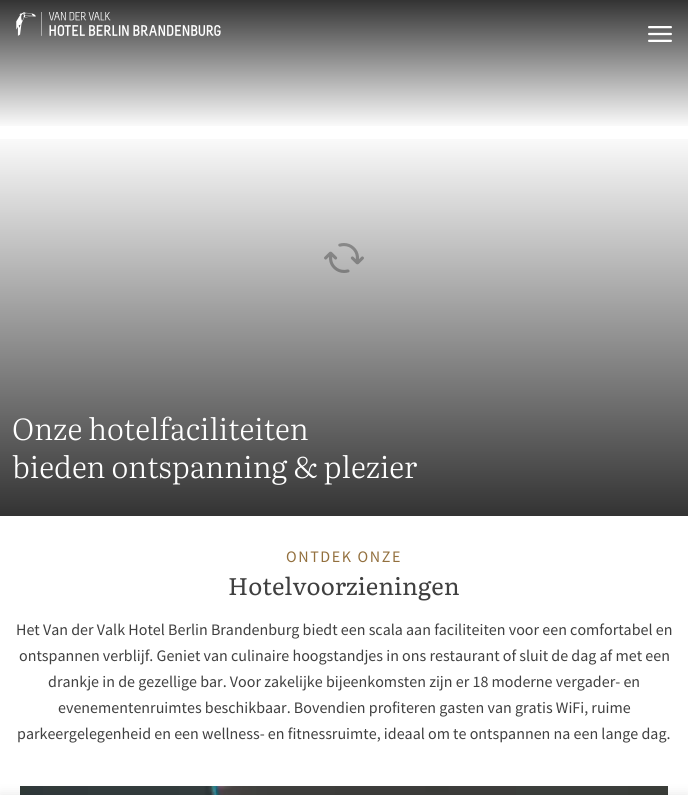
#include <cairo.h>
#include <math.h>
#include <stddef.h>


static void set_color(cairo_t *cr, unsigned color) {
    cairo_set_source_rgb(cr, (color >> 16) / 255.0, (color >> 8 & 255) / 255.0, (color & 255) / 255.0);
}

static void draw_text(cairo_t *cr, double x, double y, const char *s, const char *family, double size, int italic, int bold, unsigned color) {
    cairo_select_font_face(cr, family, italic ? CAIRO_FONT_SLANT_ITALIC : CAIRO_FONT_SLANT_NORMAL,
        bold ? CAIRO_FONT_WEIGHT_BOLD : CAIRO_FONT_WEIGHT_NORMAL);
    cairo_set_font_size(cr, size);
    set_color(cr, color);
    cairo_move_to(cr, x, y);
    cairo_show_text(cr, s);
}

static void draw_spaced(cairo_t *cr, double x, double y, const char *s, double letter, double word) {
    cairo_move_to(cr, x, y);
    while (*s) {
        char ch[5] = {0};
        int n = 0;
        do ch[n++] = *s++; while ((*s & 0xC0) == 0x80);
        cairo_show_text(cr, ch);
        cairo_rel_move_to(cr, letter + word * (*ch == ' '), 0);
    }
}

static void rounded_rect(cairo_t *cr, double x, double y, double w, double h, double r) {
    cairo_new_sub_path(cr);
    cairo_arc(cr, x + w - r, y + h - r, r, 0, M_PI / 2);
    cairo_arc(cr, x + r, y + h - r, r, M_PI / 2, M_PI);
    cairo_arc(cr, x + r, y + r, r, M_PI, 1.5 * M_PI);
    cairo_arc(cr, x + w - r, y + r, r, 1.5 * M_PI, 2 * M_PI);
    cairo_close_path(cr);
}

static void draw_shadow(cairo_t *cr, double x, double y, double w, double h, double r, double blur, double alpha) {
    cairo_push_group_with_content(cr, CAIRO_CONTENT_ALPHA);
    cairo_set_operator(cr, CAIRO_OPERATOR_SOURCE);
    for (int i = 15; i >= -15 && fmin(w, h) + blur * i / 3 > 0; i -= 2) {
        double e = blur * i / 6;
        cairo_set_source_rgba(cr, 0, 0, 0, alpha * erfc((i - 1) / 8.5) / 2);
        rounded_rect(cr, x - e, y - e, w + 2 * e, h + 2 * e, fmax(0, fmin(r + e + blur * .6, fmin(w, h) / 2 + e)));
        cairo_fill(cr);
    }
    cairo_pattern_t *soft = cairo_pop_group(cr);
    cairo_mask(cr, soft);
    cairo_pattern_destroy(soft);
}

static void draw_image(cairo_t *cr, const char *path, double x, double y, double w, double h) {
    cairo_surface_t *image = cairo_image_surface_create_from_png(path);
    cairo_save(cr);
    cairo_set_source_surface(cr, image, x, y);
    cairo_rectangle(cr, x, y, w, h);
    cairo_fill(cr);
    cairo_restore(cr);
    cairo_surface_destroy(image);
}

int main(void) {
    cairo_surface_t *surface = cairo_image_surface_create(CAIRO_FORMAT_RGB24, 688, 795);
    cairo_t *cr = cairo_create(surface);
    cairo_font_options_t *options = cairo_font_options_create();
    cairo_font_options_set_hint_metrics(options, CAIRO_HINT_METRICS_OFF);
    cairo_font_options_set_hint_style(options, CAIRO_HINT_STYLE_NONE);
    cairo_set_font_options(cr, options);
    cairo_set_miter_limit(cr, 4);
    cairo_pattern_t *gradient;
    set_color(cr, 0xFFFFFF);
    cairo_paint(cr);
    gradient = cairo_pattern_create_linear(344, 0, 344, 516);
    cairo_pattern_add_color_stop_rgba(gradient, 0, 0, 0, 0, 0.8);
    cairo_pattern_add_color_stop_rgba(gradient, 0.25, 0, 0, 0, 0);
    cairo_set_source(cr, gradient);
    cairo_pattern_destroy(gradient);
    cairo_rectangle(cr, 0, 0, 688, 126);
    cairo_fill(cr);
    draw_image(cr, "assets/img1.png", 16, 12, 205, 24);
    draw_image(cr, "assets/img2.png", 648, 26, 24, 16);
    draw_image(cr, "assets/img4.png", 20, 786, 648, 9);
    set_color(cr, 0x000000);
    draw_shadow(cr, 0, 795, 688, 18, 0, 6, 0.1);
    draw_image(cr, "assets/img3.png", 324, 243, 40, 30);
    gradient = cairo_pattern_create_linear(344, 516, 344, 0);
    cairo_pattern_add_color_stop_rgba(gradient, 0, 0, 0, 0, 0.8);
    cairo_pattern_add_color_stop_rgba(gradient, 0.75, 0, 0, 0, 0);
    cairo_set_source(cr, gradient);
    cairo_pattern_destroy(gradient);
    cairo_rectangle(cr, 0, 139, 688, 377);
    cairo_fill(cr);
    draw_text(cr, 12, 440, "Onze hotelfaciliteiten", "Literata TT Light", 30, 0, 0, 0xFFFFFF);
    draw_text(cr, 12, 478, "bieden ontspanning & plezier", "Literata TT Light", 30, 0, 0, 0xFFFFFF);
    cairo_select_font_face(cr, "Source Sans Pro", CAIRO_FONT_SLANT_NORMAL, CAIRO_FONT_WEIGHT_NORMAL);
    cairo_set_font_size(cr, 16);
    set_color(cr, 0x93703E);
    draw_spaced(cr, 286, 562, "ONTDEK ONZE", 1.6, 0);
    draw_text(cr, 228, 595, "Hotelvoorzieningen", "Literata TT", 24, 0, 0, 0x404040);
    draw_text(cr, 16, 635, "Het Van der Valk Hotel Berlin Brandenburg biedt een scala aan faciliteiten voor een comfortabel en", "Source Sans Pro", 16, 0, 0, 0x404040);
    draw_text(cr, 19, 661, "ontspannen verblijf. Geniet van culinaire hoogstandjes in ons restaurant of sluit de dag af met een", "Source Sans Pro", 16, 0, 0, 0x404040);
    draw_text(cr, 48, 687, "drankje in de gezellige bar. Voor zakelijke bijeenkomsten zijn er 18 moderne vergader- en", "Source Sans Pro", 16, 0, 0, 0x404040);
    draw_text(cr, 58, 713, "evenementenruimtes beschikbaar. Bovendien profiteren gasten van gratis WiFi, ruime", "Source Sans Pro", 16, 0, 0, 0x404040);
    draw_text(cr, 17, 739, "parkeergelegenheid en een wellness- en fitnessruimte, ideaal om te ontspannen na een lange dag.", "Source Sans Pro", 16, 0, 0, 0x404040);
    cairo_surface_write_to_png(surface, "output.png");
    cairo_font_options_destroy(options);
    cairo_destroy(cr);
    cairo_surface_destroy(surface);
    return 0;
}
